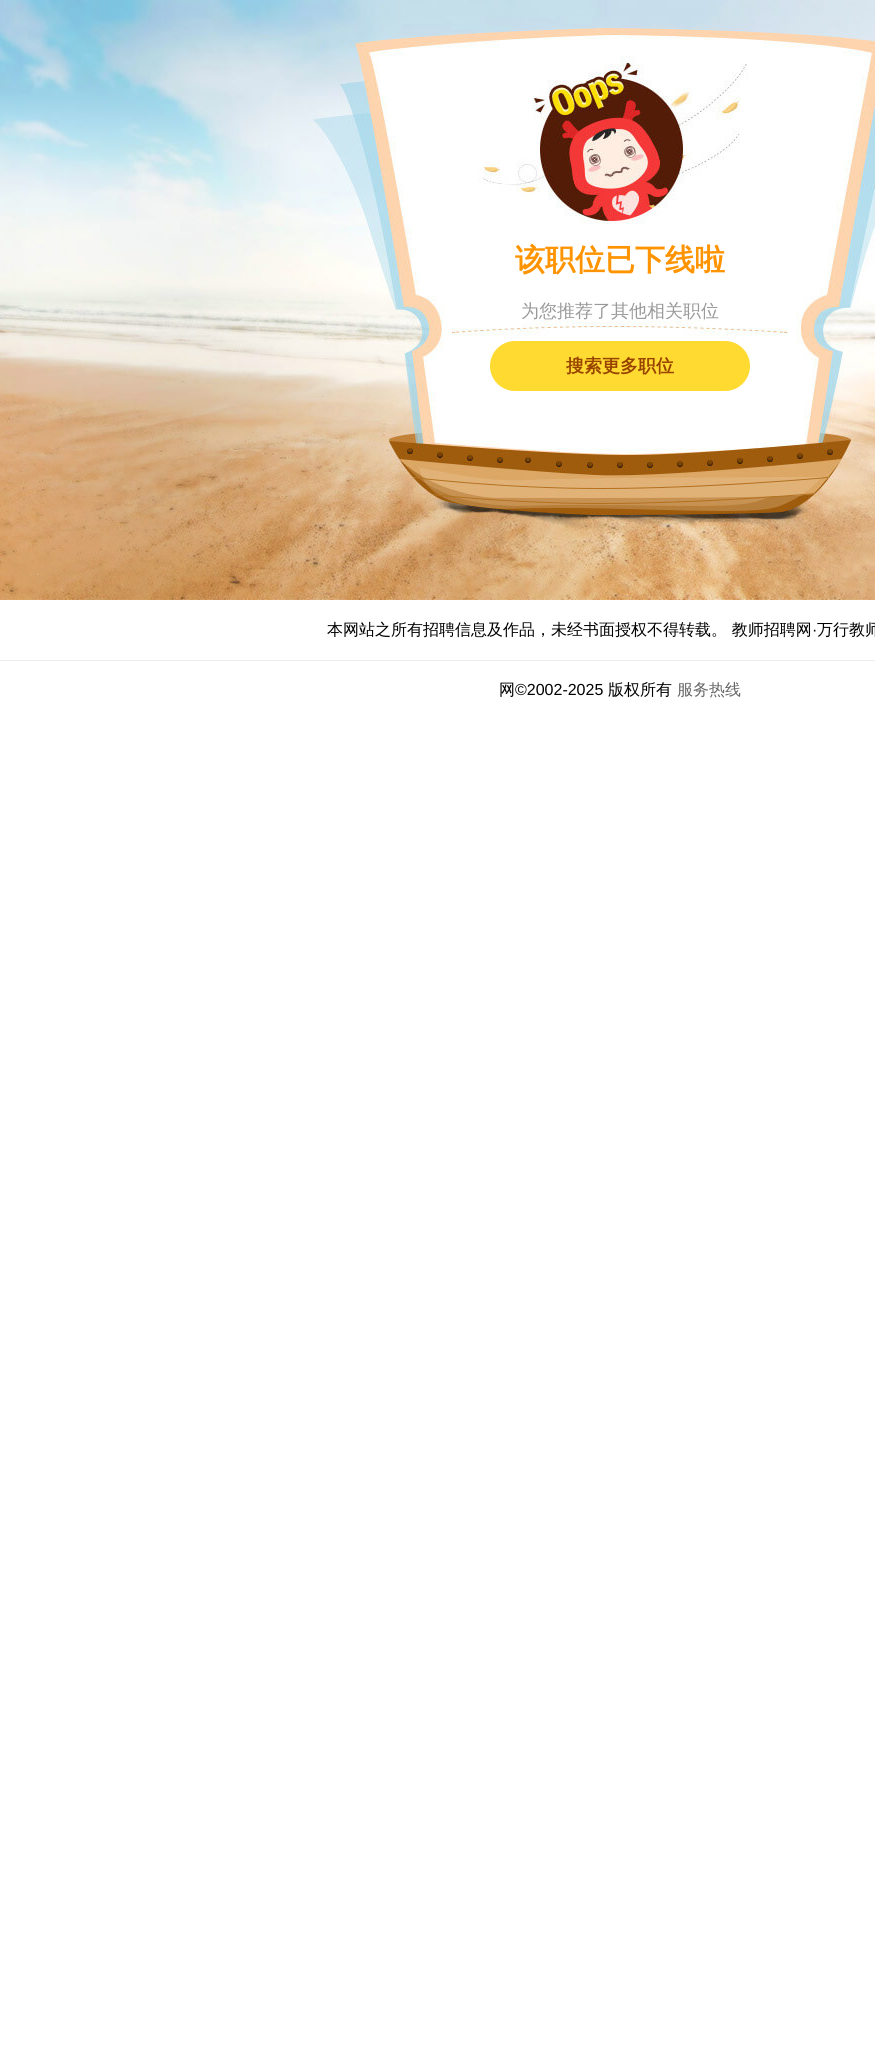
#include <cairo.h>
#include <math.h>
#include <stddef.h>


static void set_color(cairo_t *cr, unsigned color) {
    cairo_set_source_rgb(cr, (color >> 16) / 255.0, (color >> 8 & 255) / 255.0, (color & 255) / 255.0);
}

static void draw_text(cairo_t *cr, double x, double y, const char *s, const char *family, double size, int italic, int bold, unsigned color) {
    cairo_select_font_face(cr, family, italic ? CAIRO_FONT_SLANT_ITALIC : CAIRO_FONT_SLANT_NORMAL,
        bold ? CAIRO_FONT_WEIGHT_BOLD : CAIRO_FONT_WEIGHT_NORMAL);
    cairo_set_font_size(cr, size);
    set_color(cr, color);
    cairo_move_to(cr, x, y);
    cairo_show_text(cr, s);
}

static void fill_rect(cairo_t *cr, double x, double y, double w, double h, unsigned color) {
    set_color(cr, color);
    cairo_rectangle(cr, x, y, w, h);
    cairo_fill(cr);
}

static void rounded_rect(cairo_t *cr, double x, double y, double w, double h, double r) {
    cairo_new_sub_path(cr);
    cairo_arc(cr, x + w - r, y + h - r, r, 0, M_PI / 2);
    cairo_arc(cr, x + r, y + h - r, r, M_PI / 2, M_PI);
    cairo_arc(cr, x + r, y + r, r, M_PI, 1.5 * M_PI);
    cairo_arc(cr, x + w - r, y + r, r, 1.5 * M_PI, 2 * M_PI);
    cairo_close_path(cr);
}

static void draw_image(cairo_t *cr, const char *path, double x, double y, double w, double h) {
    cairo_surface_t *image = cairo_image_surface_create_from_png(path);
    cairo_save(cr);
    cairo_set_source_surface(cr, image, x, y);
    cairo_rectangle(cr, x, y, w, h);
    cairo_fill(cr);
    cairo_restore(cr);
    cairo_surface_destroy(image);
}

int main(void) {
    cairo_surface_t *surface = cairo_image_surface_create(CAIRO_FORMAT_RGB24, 875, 2064);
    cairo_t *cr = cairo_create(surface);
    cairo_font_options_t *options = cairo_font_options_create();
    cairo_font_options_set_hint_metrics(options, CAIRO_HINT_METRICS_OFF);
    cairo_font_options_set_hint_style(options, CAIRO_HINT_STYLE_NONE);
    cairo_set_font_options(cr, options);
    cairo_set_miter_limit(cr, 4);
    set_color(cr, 0xFFFFFF);
    cairo_paint(cr);
    draw_image(cr, "assets/img1.png", 0, 0, 875, 600);
    draw_text(cr, 515, 270, "该职位已下线啦", "WenQuanYi Zen Hei", 30, 0, 1, 0xFF9400);
    draw_text(cr, 521, 317, "为您推荐了其他相关职位", "WenQuanYi Zen Hei Medium", 18, 0, 0, 0x999999);
    set_color(cr, 0xFFDA31);
    rounded_rect(cr, 490, 341, 260, 50, 25);
    cairo_fill(cr);
    draw_text(cr, 566, 372, "搜索更多职位", "WenQuanYi Zen Hei", 18, 0, 1, 0x984300);
    fill_rect(cr, 0, 660, 875, 1, 0xEDEDED);
    draw_text(cr, 327, 635, "本网站之所有招聘信息及作品，未经书面授权不得转载。 教师招聘网", "WenQuanYi Zen Hei Medium", 16, 0, 0, 0x000000);
    draw_text(cr, 812, 635, "·", "Liberation Sans", 16, 0, 0, 0x000000);
    draw_text(cr, 817, 635, "万行教师", "WenQuanYi Zen Hei Medium", 16, 0, 0, 0x000000);
    draw_text(cr, 499, 695, "网", "WenQuanYi Zen Hei Medium", 16, 0, 0, 0x000000);
    draw_text(cr, 515, 695, "©2002-2025", "Liberation Sans", 16, 0, 0, 0x000000);
    draw_text(cr, 608, 695, "版权所有", "WenQuanYi Zen Hei Medium", 16, 0, 0, 0x000000);
    draw_text(cr, 677, 695, "服务热线", "WenQuanYi Zen Hei Medium", 16, 0, 0, 0x666666);
    cairo_surface_write_to_png(surface, "output.png");
    cairo_font_options_destroy(options);
    cairo_destroy(cr);
    cairo_surface_destroy(surface);
    return 0;
}
